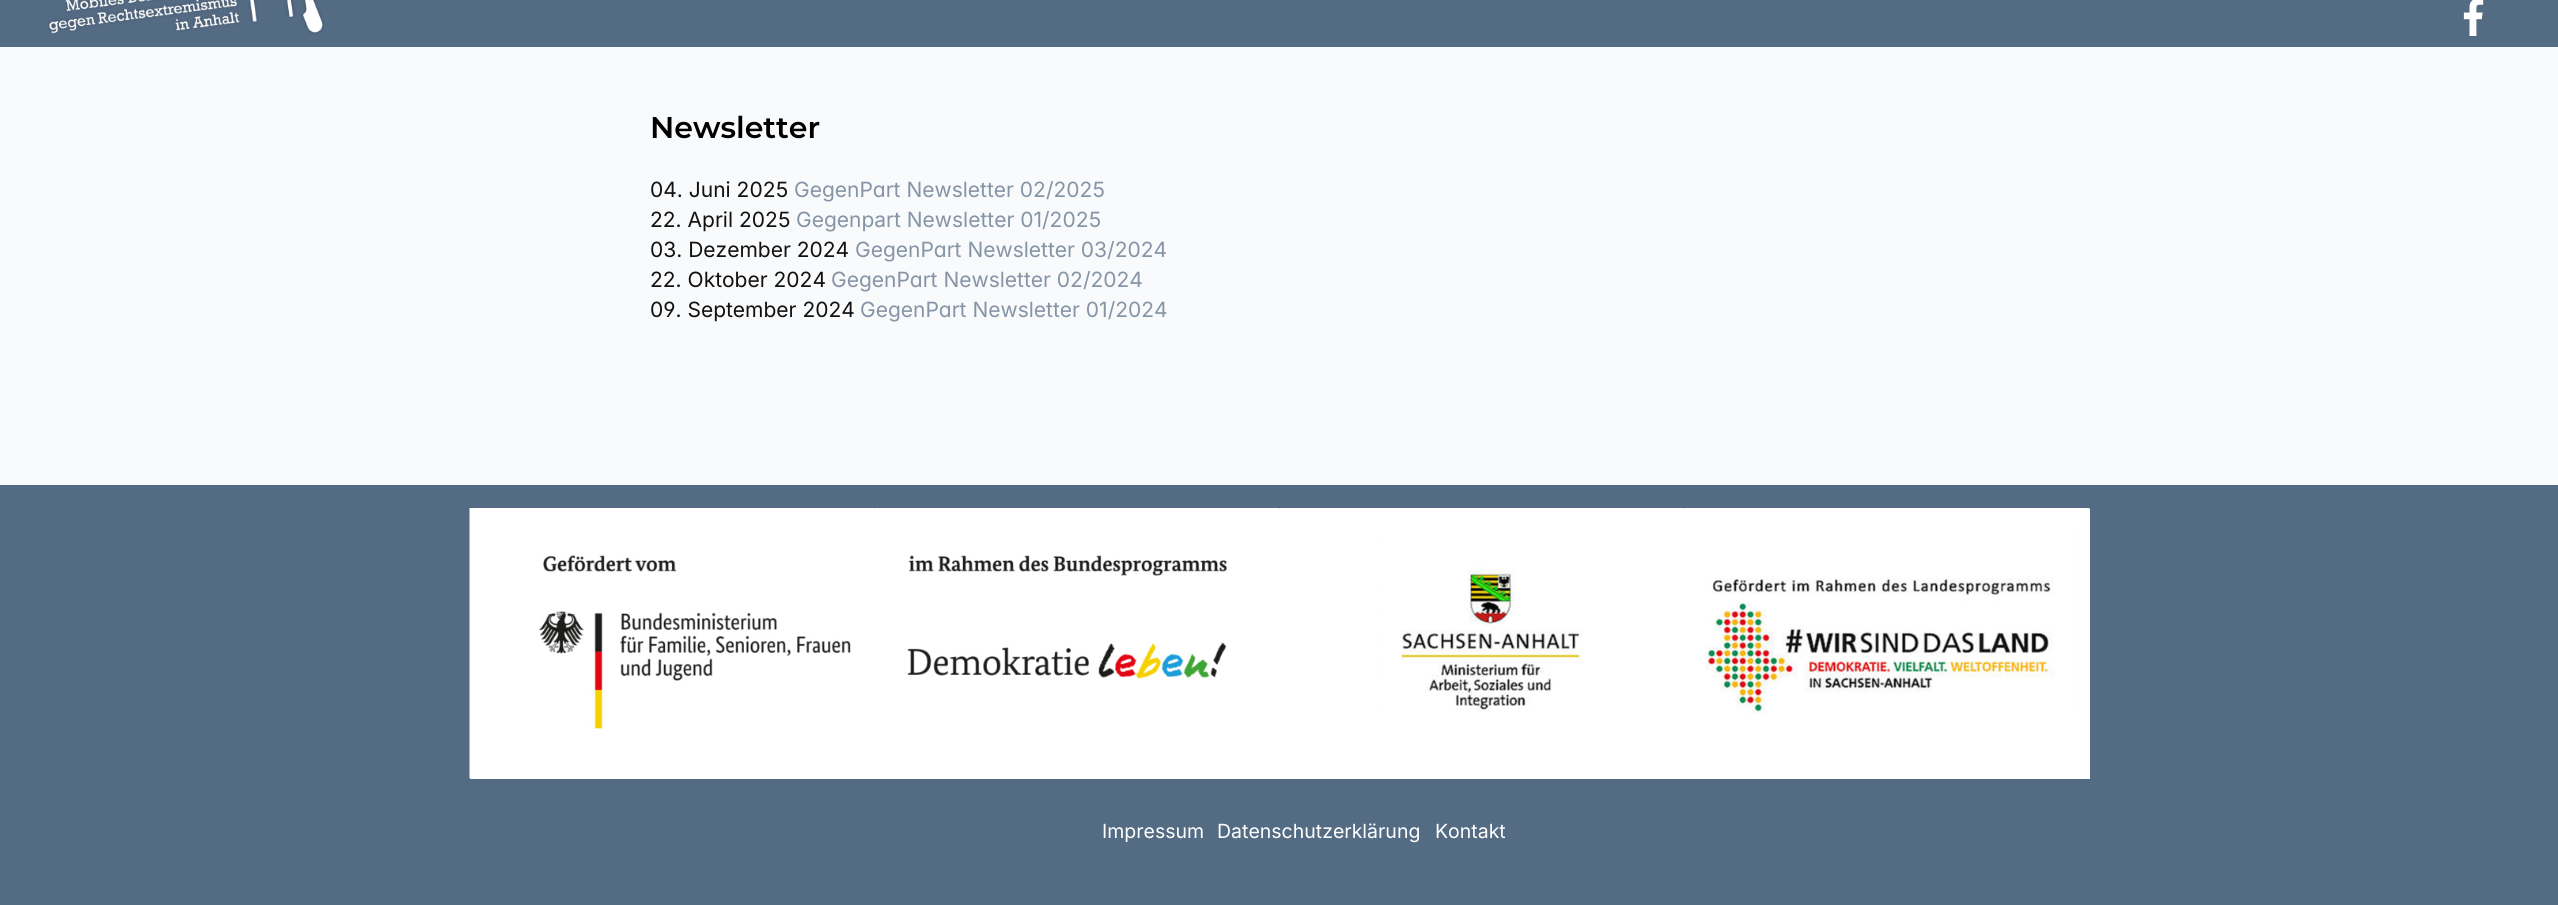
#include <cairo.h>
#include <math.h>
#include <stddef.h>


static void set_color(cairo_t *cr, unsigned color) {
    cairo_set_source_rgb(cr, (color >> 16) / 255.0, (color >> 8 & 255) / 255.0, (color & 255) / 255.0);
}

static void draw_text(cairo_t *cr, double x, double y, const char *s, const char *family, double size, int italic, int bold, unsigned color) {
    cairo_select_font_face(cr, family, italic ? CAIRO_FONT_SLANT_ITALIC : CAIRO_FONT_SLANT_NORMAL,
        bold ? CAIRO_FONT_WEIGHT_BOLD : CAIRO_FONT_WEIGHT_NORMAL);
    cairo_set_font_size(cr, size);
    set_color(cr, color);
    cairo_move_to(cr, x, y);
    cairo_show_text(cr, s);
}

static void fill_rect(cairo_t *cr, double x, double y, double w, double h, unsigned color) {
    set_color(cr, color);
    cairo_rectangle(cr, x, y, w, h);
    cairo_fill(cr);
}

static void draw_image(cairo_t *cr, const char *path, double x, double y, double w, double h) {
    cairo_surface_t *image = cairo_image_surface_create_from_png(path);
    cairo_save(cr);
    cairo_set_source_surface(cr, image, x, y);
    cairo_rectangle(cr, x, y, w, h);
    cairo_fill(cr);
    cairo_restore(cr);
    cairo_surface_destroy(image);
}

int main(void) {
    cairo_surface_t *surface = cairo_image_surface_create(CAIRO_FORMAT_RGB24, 2558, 905);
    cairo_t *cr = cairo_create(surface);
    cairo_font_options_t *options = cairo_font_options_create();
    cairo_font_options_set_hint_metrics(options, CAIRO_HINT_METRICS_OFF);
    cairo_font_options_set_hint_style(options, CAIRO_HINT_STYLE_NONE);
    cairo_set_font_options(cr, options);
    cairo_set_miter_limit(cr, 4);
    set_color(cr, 0xF9FAFB);
    cairo_paint(cr);
    fill_rect(cr, 0, 0, 2558, 47, 0x546B84);
    draw_image(cr, "assets/img1.png", 48, 0, 277, 35);
    draw_image(cr, "assets/img2.png", 2463, 0, 21, 36);
    draw_text(cr, 650, 138, "Newsletter", "Montserrat SemiBold", 30, 0, 0, 0x000000);
    draw_text(cr, 650, 197, "04. Juni 2025", "Inter", 21, 0, 0, 0x111111);
    draw_text(cr, 794, 197, "GegenPart Newsletter 02/2025", "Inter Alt", 21, 0, 0, 0x8594A6);
    draw_text(cr, 650, 227, "22. April 2025", "Inter", 21, 0, 0, 0x111111);
    draw_text(cr, 796, 227, "Gegenpart Newsletter 01/2025", "Inter", 21, 0, 0, 0x8594A6);
    draw_text(cr, 650, 257, "03. Dezember 2024", "Inter", 21, 0, 0, 0x111111);
    draw_text(cr, 855, 257, "GegenPart Newsletter 03/2024", "Inter Alt", 21, 0, 0, 0x8594A6);
    draw_text(cr, 650, 287, "22. Oktober 2024", "Inter", 21, 0, 0, 0x111111);
    draw_text(cr, 831, 287, "GegenPart Newsletter 02/2024", "Inter Alt", 21, 0, 0, 0x8594A6);
    draw_text(cr, 650, 317, "09. September 2024", "Inter Alt", 21, 0, 0, 0x111111);
    draw_text(cr, 860, 317, "GegenPart Newsletter 01/2024", "Inter Alt", 21, 0, 0, 0x8594A6);
    fill_rect(cr, 0, 485, 2558, 420, 0x546B84);
    fill_rect(cr, 470, 509, 1620, 270, 0xFFFFFF);
    draw_image(cr, "assets/img3.png", 469, 508, 406, 270);
    draw_image(cr, "assets/img4.png", 874, 508, 406, 171);
    draw_image(cr, "assets/img5.png", 1279, 508, 406, 204);
    draw_image(cr, "assets/img6.png", 1684, 508, 406, 207);
    draw_text(cr, 1102, 838, "Impressum", "Inter", 19.5, 0, 0, 0xFFFFFF);
    draw_text(cr, 1217, 838, "Datenschutzerklärung", "Inter", 19.5, 0, 0, 0xFFFFFF);
    draw_text(cr, 1435, 838, "Kontakt", "Inter", 19.5, 0, 0, 0xFFFFFF);
    cairo_surface_write_to_png(surface, "output.png");
    cairo_font_options_destroy(options);
    cairo_destroy(cr);
    cairo_surface_destroy(surface);
    return 0;
}
